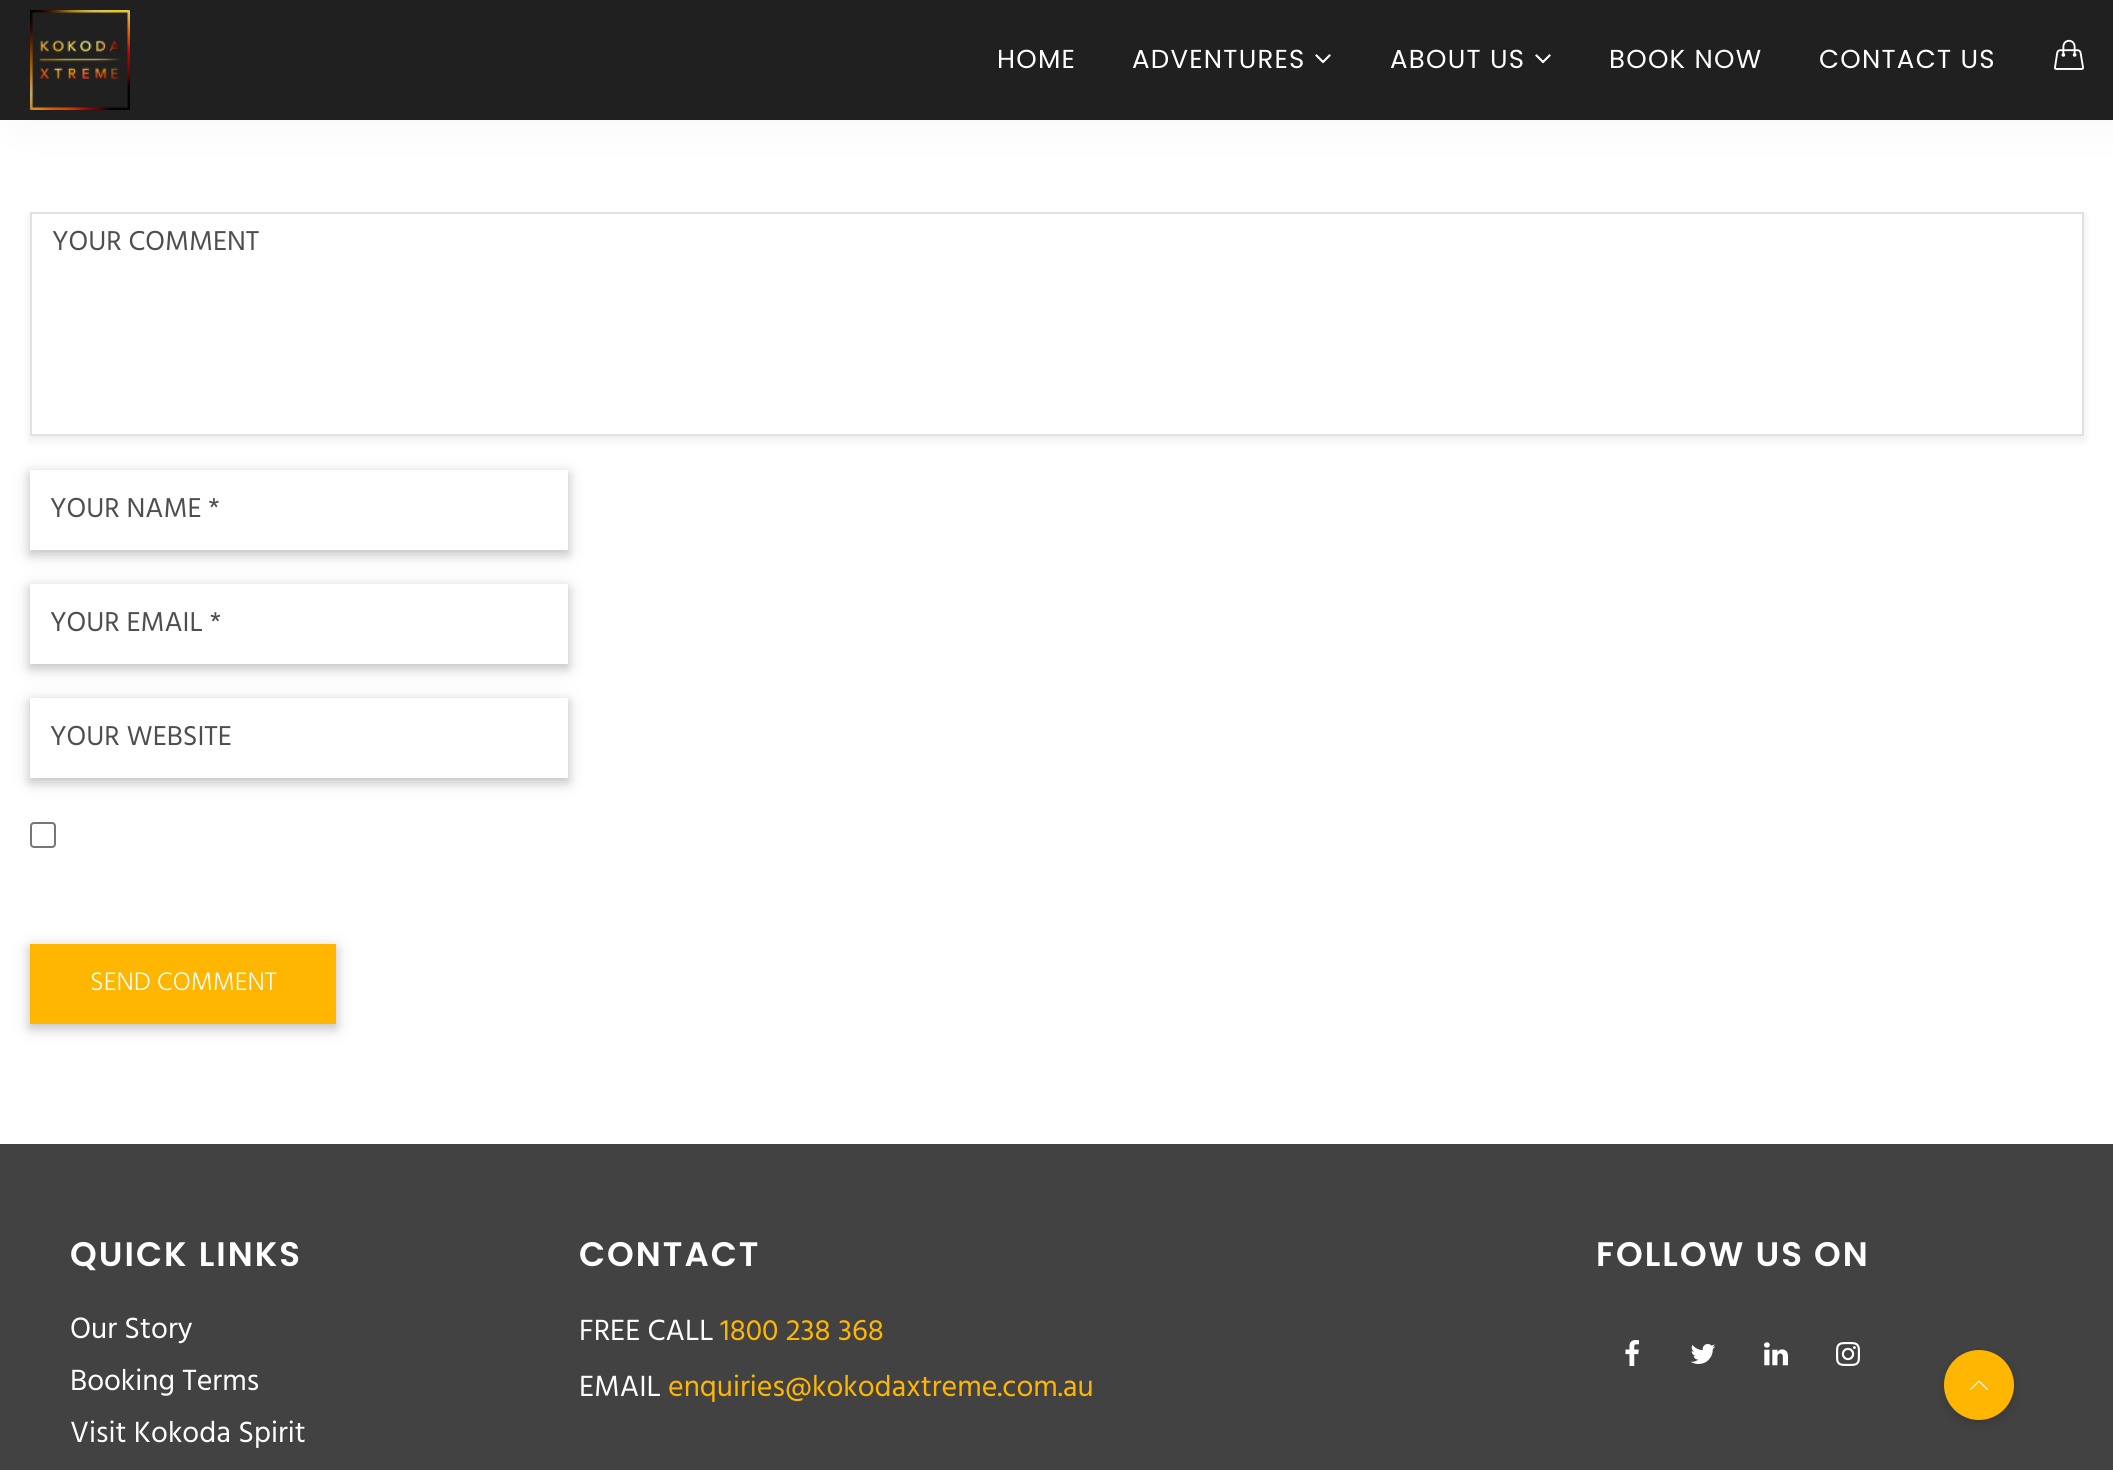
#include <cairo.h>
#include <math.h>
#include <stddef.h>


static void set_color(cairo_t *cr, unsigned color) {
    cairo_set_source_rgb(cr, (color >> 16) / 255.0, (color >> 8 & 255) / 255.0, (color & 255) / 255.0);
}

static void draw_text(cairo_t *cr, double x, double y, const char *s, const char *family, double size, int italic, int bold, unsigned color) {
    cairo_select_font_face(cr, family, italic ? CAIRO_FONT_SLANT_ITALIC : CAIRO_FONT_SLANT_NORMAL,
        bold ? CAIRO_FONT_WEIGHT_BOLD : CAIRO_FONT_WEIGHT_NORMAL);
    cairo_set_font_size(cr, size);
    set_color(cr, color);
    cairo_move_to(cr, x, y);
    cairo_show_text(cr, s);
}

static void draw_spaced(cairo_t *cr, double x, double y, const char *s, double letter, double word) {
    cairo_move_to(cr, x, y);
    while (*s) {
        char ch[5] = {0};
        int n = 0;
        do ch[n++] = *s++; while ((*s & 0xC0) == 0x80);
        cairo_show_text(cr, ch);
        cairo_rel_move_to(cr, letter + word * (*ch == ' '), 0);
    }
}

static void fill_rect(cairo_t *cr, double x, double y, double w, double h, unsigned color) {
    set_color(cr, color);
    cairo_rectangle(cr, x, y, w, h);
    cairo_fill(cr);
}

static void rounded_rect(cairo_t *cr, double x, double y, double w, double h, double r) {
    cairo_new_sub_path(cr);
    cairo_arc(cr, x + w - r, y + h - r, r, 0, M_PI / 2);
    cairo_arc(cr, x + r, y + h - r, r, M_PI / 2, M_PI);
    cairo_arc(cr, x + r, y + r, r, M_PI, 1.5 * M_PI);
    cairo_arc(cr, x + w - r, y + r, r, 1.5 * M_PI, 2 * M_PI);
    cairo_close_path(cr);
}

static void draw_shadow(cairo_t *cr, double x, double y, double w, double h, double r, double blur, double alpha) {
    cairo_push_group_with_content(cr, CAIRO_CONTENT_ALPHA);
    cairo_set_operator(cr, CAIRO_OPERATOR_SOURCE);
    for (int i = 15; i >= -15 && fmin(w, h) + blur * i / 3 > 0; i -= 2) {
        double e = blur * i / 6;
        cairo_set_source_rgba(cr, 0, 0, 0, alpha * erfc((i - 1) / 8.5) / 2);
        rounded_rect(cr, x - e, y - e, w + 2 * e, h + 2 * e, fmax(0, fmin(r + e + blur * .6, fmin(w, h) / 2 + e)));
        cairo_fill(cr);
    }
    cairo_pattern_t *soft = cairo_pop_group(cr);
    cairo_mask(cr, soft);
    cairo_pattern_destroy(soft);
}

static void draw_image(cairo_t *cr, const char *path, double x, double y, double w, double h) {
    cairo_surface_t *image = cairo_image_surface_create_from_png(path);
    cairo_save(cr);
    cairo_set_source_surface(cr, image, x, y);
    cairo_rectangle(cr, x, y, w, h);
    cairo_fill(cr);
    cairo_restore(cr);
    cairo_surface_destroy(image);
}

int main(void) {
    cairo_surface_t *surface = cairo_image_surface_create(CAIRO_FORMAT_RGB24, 2113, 1470);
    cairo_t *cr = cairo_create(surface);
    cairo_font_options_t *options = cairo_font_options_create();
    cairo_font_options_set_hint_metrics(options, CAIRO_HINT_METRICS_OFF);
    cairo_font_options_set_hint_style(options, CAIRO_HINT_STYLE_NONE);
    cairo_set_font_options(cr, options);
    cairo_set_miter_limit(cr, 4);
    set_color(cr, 0xFFFFFF);
    cairo_paint(cr);
    set_color(cr, 0x000000);
    draw_shadow(cr, 22, 2, 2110, 116, 0, 25, 0.05);
    fill_rect(cr, 0, 0, 2113, 120, 0x202020);
    draw_image(cr, "assets/img1.png", 30, 10, 100, 100);
    cairo_select_font_face(cr, "Poppins", CAIRO_FONT_SLANT_NORMAL, CAIRO_FONT_WEIGHT_NORMAL);
    cairo_set_font_size(cr, 26);
    set_color(cr, 0xFFFFFF);
    draw_spaced(cr, 997, 68, "HOME", 1.25, 0);
    draw_spaced(cr, 1132, 68, "ADVENTURES", 1.25, 0);
    draw_image(cr, "assets/img2.png", 1315, 54, 16, 10);
    draw_spaced(cr, 1390, 68, "ABOUT US", 1.25, 0);
    draw_image(cr, "assets/img2.png", 1535, 54, 16, 10);
    draw_spaced(cr, 1609, 68, "BOOK NOW", 1.25, 0);
    draw_spaced(cr, 1819, 68, "CONTACT US", 1.25, 0);
    draw_image(cr, "assets/img3.png", 2054, 39, 30, 31);
    cairo_save(cr);
    cairo_set_fill_rule(cr, CAIRO_FILL_RULE_EVEN_ODD);
    cairo_new_path(cr);
    cairo_move_to(cr, 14, 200);
    cairo_line_to(cr, 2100, 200);
    cairo_line_to(cr, 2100, 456);
    cairo_line_to(cr, 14, 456);
    cairo_close_path(cr);
    cairo_move_to(cr, 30, 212);
    cairo_line_to(cr, 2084, 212);
    cairo_line_to(cr, 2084, 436);
    cairo_line_to(cr, 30, 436);
    cairo_close_path(cr);
    cairo_clip(cr);
    set_color(cr, 0x000000);
    draw_shadow(cr, 30, 216, 2054, 224, 0, 5, 0.08);
    cairo_restore(cr);
    cairo_rectangle(cr, 31, 213, 2052, 222);
    set_color(cr, 0xE1E1E1);
    cairo_stroke(cr);
    draw_text(cr, 52, 250, "YOUR COMMENT", "Hind", 28, 0, 0, 0x4E4E4E);
    cairo_save(cr);
    cairo_set_fill_rule(cr, CAIRO_FILL_RULE_EVEN_ODD);
    cairo_new_path(cr);
    cairo_move_to(cr, 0, 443);
    cairo_line_to(cr, 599, 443);
    cairo_line_to(cr, 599, 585);
    cairo_line_to(cr, 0, 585);
    cairo_close_path(cr);
    cairo_move_to(cr, 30, 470);
    cairo_line_to(cr, 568, 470);
    cairo_line_to(cr, 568, 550);
    cairo_line_to(cr, 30, 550);
    cairo_close_path(cr);
    cairo_clip(cr);
    set_color(cr, 0x000000);
    draw_shadow(cr, 30, 474, 538, 80, 0, 10, 0.12);
    cairo_restore(cr);
    cairo_save(cr);
    cairo_set_fill_rule(cr, CAIRO_FILL_RULE_EVEN_ODD);
    cairo_new_path(cr);
    cairo_move_to(cr, 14, 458);
    cairo_line_to(cr, 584, 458);
    cairo_line_to(cr, 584, 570);
    cairo_line_to(cr, 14, 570);
    cairo_close_path(cr);
    cairo_move_to(cr, 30, 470);
    cairo_line_to(cr, 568, 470);
    cairo_line_to(cr, 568, 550);
    cairo_line_to(cr, 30, 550);
    cairo_close_path(cr);
    cairo_clip(cr);
    set_color(cr, 0x000000);
    draw_shadow(cr, 30, 474, 538, 80, 0, 5, 0.16);
    cairo_restore(cr);
    draw_text(cr, 50, 517, "YOUR NAME *", "Hind", 28, 0, 0, 0x4E4E4E);
    cairo_save(cr);
    cairo_set_fill_rule(cr, CAIRO_FILL_RULE_EVEN_ODD);
    cairo_new_path(cr);
    cairo_move_to(cr, 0, 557);
    cairo_line_to(cr, 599, 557);
    cairo_line_to(cr, 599, 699);
    cairo_line_to(cr, 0, 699);
    cairo_close_path(cr);
    cairo_move_to(cr, 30, 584);
    cairo_line_to(cr, 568, 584);
    cairo_line_to(cr, 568, 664);
    cairo_line_to(cr, 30, 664);
    cairo_close_path(cr);
    cairo_clip(cr);
    set_color(cr, 0x000000);
    draw_shadow(cr, 30, 588, 538, 80, 0, 10, 0.12);
    cairo_restore(cr);
    cairo_save(cr);
    cairo_set_fill_rule(cr, CAIRO_FILL_RULE_EVEN_ODD);
    cairo_new_path(cr);
    cairo_move_to(cr, 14, 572);
    cairo_line_to(cr, 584, 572);
    cairo_line_to(cr, 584, 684);
    cairo_line_to(cr, 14, 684);
    cairo_close_path(cr);
    cairo_move_to(cr, 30, 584);
    cairo_line_to(cr, 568, 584);
    cairo_line_to(cr, 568, 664);
    cairo_line_to(cr, 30, 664);
    cairo_close_path(cr);
    cairo_clip(cr);
    set_color(cr, 0x000000);
    draw_shadow(cr, 30, 588, 538, 80, 0, 5, 0.16);
    cairo_restore(cr);
    draw_text(cr, 50, 631, "YOUR EMAIL *", "Hind", 28, 0, 0, 0x4E4E4E);
    cairo_save(cr);
    cairo_set_fill_rule(cr, CAIRO_FILL_RULE_EVEN_ODD);
    cairo_new_path(cr);
    cairo_move_to(cr, 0, 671);
    cairo_line_to(cr, 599, 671);
    cairo_line_to(cr, 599, 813);
    cairo_line_to(cr, 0, 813);
    cairo_close_path(cr);
    cairo_move_to(cr, 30, 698);
    cairo_line_to(cr, 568, 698);
    cairo_line_to(cr, 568, 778);
    cairo_line_to(cr, 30, 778);
    cairo_close_path(cr);
    cairo_clip(cr);
    set_color(cr, 0x000000);
    draw_shadow(cr, 30, 702, 538, 80, 0, 10, 0.12);
    cairo_restore(cr);
    cairo_save(cr);
    cairo_set_fill_rule(cr, CAIRO_FILL_RULE_EVEN_ODD);
    cairo_new_path(cr);
    cairo_move_to(cr, 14, 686);
    cairo_line_to(cr, 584, 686);
    cairo_line_to(cr, 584, 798);
    cairo_line_to(cr, 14, 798);
    cairo_close_path(cr);
    cairo_move_to(cr, 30, 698);
    cairo_line_to(cr, 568, 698);
    cairo_line_to(cr, 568, 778);
    cairo_line_to(cr, 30, 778);
    cairo_close_path(cr);
    cairo_clip(cr);
    set_color(cr, 0x000000);
    draw_shadow(cr, 30, 702, 538, 80, 0, 5, 0.16);
    cairo_restore(cr);
    draw_text(cr, 50, 745, "YOUR WEBSITE", "Hind", 28, 0, 0, 0x4E4E4E);
    rounded_rect(cr, 31, 823, 24, 24, 3);
    set_color(cr, 0x767676);
    cairo_stroke(cr);
    set_color(cr, 0x000000);
    draw_shadow(cr, 30, 948, 306, 80, 0, 10, 0.12);
    draw_shadow(cr, 30, 948, 306, 80, 0, 5, 0.16);
    fill_rect(cr, 30, 944, 306, 80, 0xFEB600);
    draw_text(cr, 90, 990, "SEND COMMENT", "Hind Light", 26, 0, 0, 0xFFFFFF);
    fill_rect(cr, 0, 1144, 2113, 326, 0x424242);
    cairo_select_font_face(cr, "Poppins SemiBold", CAIRO_FONT_SLANT_NORMAL, CAIRO_FONT_WEIGHT_NORMAL);
    cairo_set_font_size(cr, 34);
    set_color(cr, 0xFFFFFF);
    draw_spaced(cr, 70, 1266, "QUICK LINKS", 2, 0);
    draw_text(cr, 70, 1338, "Our Story", "Hind", 30, 0, 0, 0xFFFFFF);
    draw_text(cr, 70, 1390, "Booking Terms", "Hind", 30, 0, 0, 0xFFFFFF);
    draw_text(cr, 70, 1442, "Visit Kokoda Spirit", "Hind", 30, 0, 0, 0xFFFFFF);
    cairo_select_font_face(cr, "Poppins SemiBold", CAIRO_FONT_SLANT_NORMAL, CAIRO_FONT_WEIGHT_NORMAL);
    cairo_set_font_size(cr, 34);
    draw_spaced(cr, 579, 1266, "CONTACT", 2, 0);
    draw_text(cr, 579, 1340, "FREE CALL", "Hind", 30, 0, 0, 0xFFFFFF);
    draw_text(cr, 720, 1340, "1800 238 368", "Hind", 30, 0, 0, 0xFEB600);
    draw_text(cr, 579, 1396, "EMAIL", "Hind", 30, 0, 0, 0xFFFFFF);
    draw_text(cr, 668, 1396, "enquiries@kokodaxtreme.com.au", "Hind", 30, 0, 0, 0xFEB600);
    cairo_select_font_face(cr, "Poppins SemiBold", CAIRO_FONT_SLANT_NORMAL, CAIRO_FONT_WEIGHT_NORMAL);
    cairo_set_font_size(cr, 34);
    set_color(cr, 0xFFFFFF);
    draw_spaced(cr, 1596, 1266, "FOLLOW US ON", 2, 0);
    draw_image(cr, "assets/img4.png", 1625, 1340, 14, 26);
    draw_image(cr, "assets/img5.png", 1690, 1344, 26, 20);
    draw_image(cr, "assets/img6.png", 1764, 1342, 24, 24);
    draw_image(cr, "assets/img7.png", 1836, 1342, 24, 24);
    set_color(cr, 0x000000);
    draw_shadow(cr, 1944, 1354, 70, 70, 35, 5, 0.16);
    set_color(cr, 0xFEB600);
    cairo_arc(cr, 1979, 1385, 35, 0, 2 * M_PI);
    cairo_fill(cr);
    draw_image(cr, "assets/img8.png", 1970, 1380, 18, 10);
    cairo_surface_write_to_png(surface, "output.png");
    cairo_font_options_destroy(options);
    cairo_destroy(cr);
    cairo_surface_destroy(surface);
    return 0;
}
